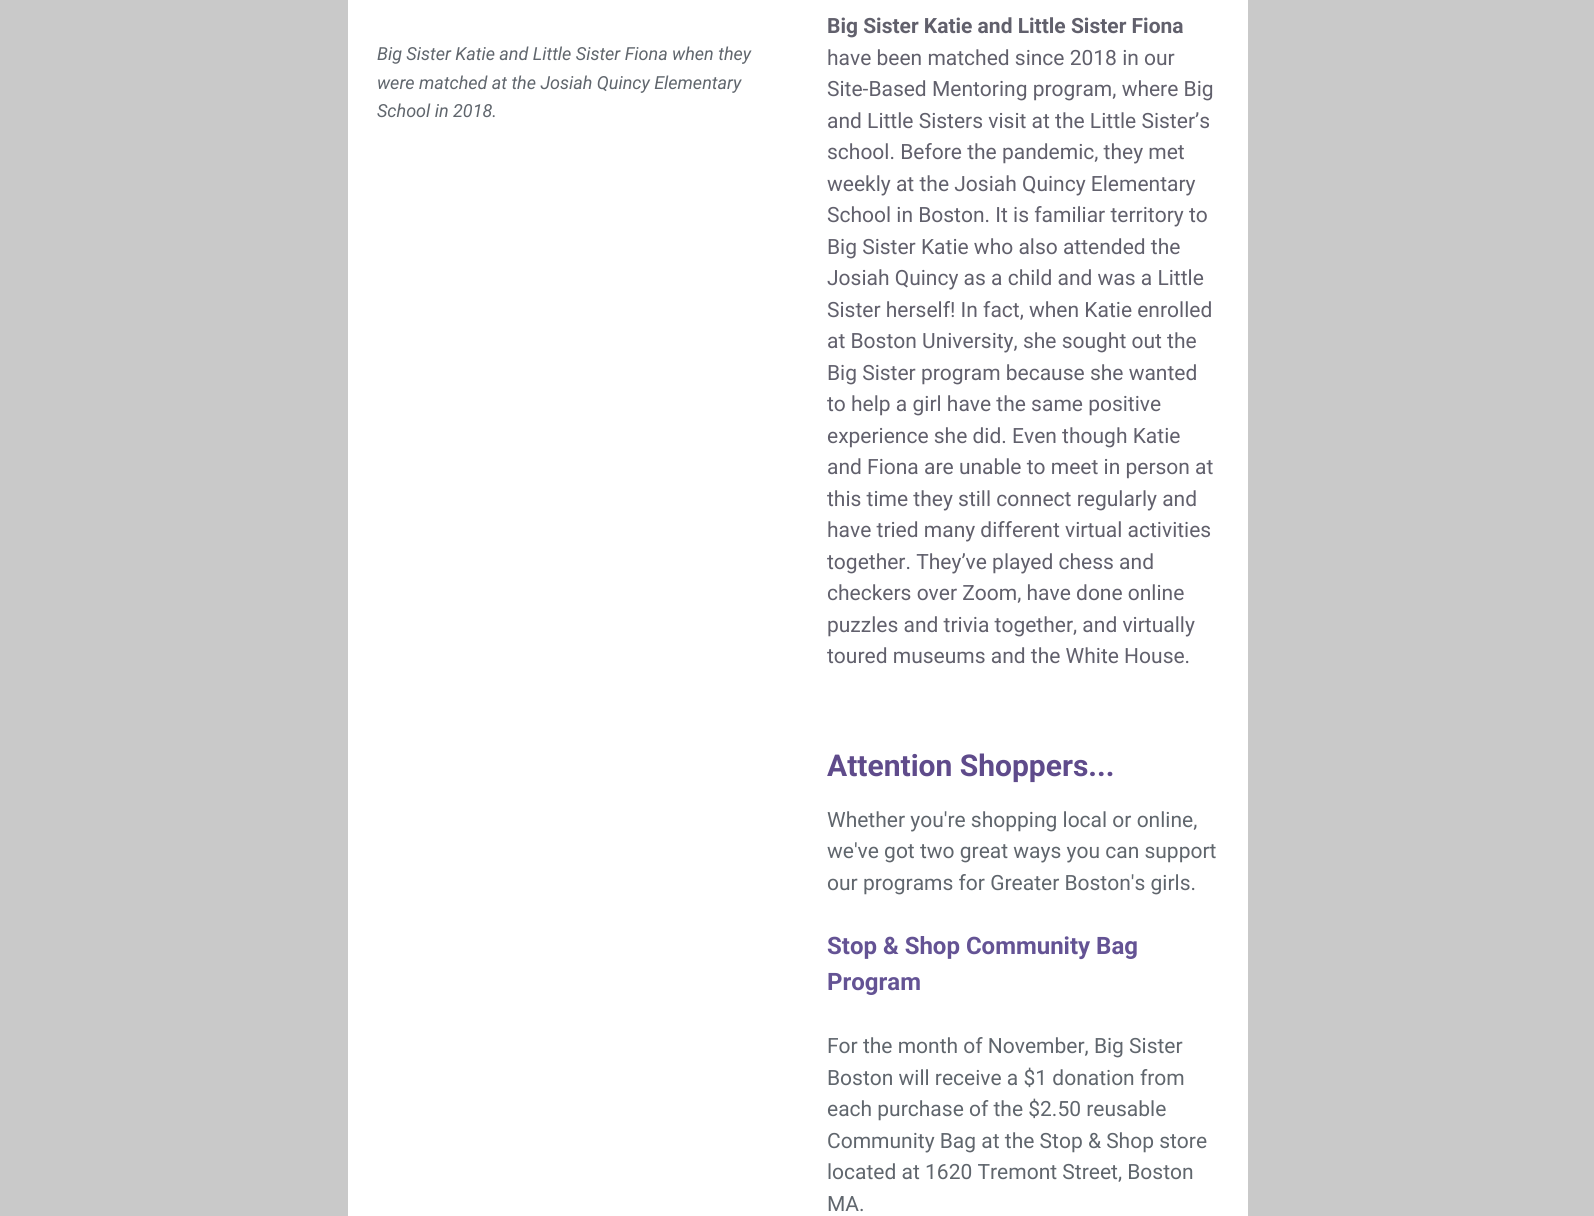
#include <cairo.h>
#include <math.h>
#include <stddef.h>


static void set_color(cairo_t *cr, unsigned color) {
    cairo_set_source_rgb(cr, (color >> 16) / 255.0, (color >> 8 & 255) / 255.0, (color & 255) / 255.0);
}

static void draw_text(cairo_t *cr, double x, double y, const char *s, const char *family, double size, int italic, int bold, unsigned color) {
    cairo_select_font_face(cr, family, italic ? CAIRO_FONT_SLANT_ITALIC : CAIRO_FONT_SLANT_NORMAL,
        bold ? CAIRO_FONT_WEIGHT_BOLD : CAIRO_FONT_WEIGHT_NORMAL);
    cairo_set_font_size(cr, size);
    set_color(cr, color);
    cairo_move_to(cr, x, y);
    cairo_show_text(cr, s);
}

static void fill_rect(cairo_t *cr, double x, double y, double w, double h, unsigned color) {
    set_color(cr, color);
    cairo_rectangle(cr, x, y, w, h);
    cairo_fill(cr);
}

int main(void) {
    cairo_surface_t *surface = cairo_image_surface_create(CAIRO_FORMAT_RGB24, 1594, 1216);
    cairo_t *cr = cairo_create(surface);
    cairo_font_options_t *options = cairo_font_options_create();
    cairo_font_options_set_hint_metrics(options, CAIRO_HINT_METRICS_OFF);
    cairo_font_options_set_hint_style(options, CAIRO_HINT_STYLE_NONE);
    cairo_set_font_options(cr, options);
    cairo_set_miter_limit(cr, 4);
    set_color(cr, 0xC9C9C9);
    cairo_paint(cr);
    fill_rect(cr, 348, 0, 900, 1216, 0xFFFFFF);
    draw_text(cr, 377, 60, "Big Sister Katie and Little Sister Fiona when they", "Roboto", 18, 1, 0, 0x60666D);
    draw_text(cr, 377, 89, "were matched at the Josiah Quincy Elementary", "Roboto", 18, 1, 0, 0x60666D);
    draw_text(cr, 377, 117, "School in 2018.", "Roboto", 18, 1, 0, 0x60666D);
    draw_text(cr, 827, 33, "Big Sister Katie and Little Sister Fiona", "Roboto", 21, 0, 1, 0x61606C);
    draw_text(cr, 827, 65, "have been matched since 2018 in our", "Roboto", 21, 0, 0, 0x61606C);
    draw_text(cr, 827, 96, "Site-Based Mentoring program, where Big", "Roboto", 21, 0, 0, 0x61606C);
    draw_text(cr, 827, 128, "and Little Sisters visit at the Little Sister’s", "Roboto", 21, 0, 0, 0x61606C);
    draw_text(cr, 827, 159, "school. Before the pandemic, they met", "Roboto", 21, 0, 0, 0x61606C);
    draw_text(cr, 827, 191, "weekly at the Josiah Quincy Elementary", "Roboto", 21, 0, 0, 0x61606C);
    draw_text(cr, 827, 222, "School in Boston. It is familiar territory to", "Roboto", 21, 0, 0, 0x61606C);
    draw_text(cr, 827, 254, "Big Sister Katie who also attended the", "Roboto", 21, 0, 0, 0x61606C);
    draw_text(cr, 827, 285, "Josiah Quincy as a child and was a Little", "Roboto", 21, 0, 0, 0x61606C);
    draw_text(cr, 827, 317, "Sister herself! In fact, when Katie enrolled", "Roboto", 21, 0, 0, 0x61606C);
    draw_text(cr, 827, 348, "at Boston University, she sought out the", "Roboto", 21, 0, 0, 0x61606C);
    draw_text(cr, 827, 380, "Big Sister program because she wanted", "Roboto", 21, 0, 0, 0x61606C);
    draw_text(cr, 827, 411, "to help a girl have the same positive", "Roboto", 21, 0, 0, 0x61606C);
    draw_text(cr, 827, 443, "experience she did. Even though Katie", "Roboto", 21, 0, 0, 0x61606C);
    draw_text(cr, 827, 474, "and Fiona are unable to meet in person at", "Roboto", 21, 0, 0, 0x61606C);
    draw_text(cr, 827, 506, "this time they still connect regularly and", "Roboto", 21, 0, 0, 0x61606C);
    draw_text(cr, 827, 537, "have tried many different virtual activities", "Roboto", 21, 0, 0, 0x61606C);
    draw_text(cr, 827, 569, "together. They’ve played chess and", "Roboto", 21, 0, 0, 0x61606C);
    draw_text(cr, 827, 600, "checkers over Zoom, have done online", "Roboto", 21, 0, 0, 0x61606C);
    draw_text(cr, 827, 632, "puzzles and trivia together, and virtually", "Roboto", 21, 0, 0, 0x61606C);
    draw_text(cr, 827, 663, "toured museums and the White House.", "Roboto", 21, 0, 0, 0x61606C);
    draw_text(cr, 827, 776, "Attention Shoppers...", "Roboto", 30, 0, 1, 0x5F4B8B);
    draw_text(cr, 827, 827, "Whether you're shopping local or online,", "Roboto", 21, 0, 0, 0x60666D);
    draw_text(cr, 827, 858, "we've got two great ways you can support", "Roboto", 21, 0, 0, 0x60666D);
    draw_text(cr, 827, 890, "our programs for Greater Boston's girls.", "Roboto", 21, 0, 0, 0x60666D);
    draw_text(cr, 827, 954, "Stop & Shop Community Bag", "Roboto", 24, 0, 1, 0x645394);
    draw_text(cr, 827, 990, "Program", "Roboto", 24, 0, 1, 0x645394);
    draw_text(cr, 827, 1053, "For the month of November, Big Sister", "Roboto", 21, 0, 0, 0x60666D);
    draw_text(cr, 827, 1085, "Boston will receive a $1 donation from", "Roboto", 21, 0, 0, 0x60666D);
    draw_text(cr, 827, 1116, "each purchase of the $2.50 reusable", "Roboto", 21, 0, 0, 0x60666D);
    draw_text(cr, 827, 1148, "Community Bag at the Stop & Shop store", "Roboto", 21, 0, 0, 0x60666D);
    draw_text(cr, 827, 1179, "located at 1620 Tremont Street, Boston", "Roboto", 21, 0, 0, 0x60666D);
    draw_text(cr, 827, 1211, "MA.", "Roboto", 21, 0, 0, 0x60666D);
    cairo_surface_write_to_png(surface, "output.png");
    cairo_font_options_destroy(options);
    cairo_destroy(cr);
    cairo_surface_destroy(surface);
    return 0;
}
